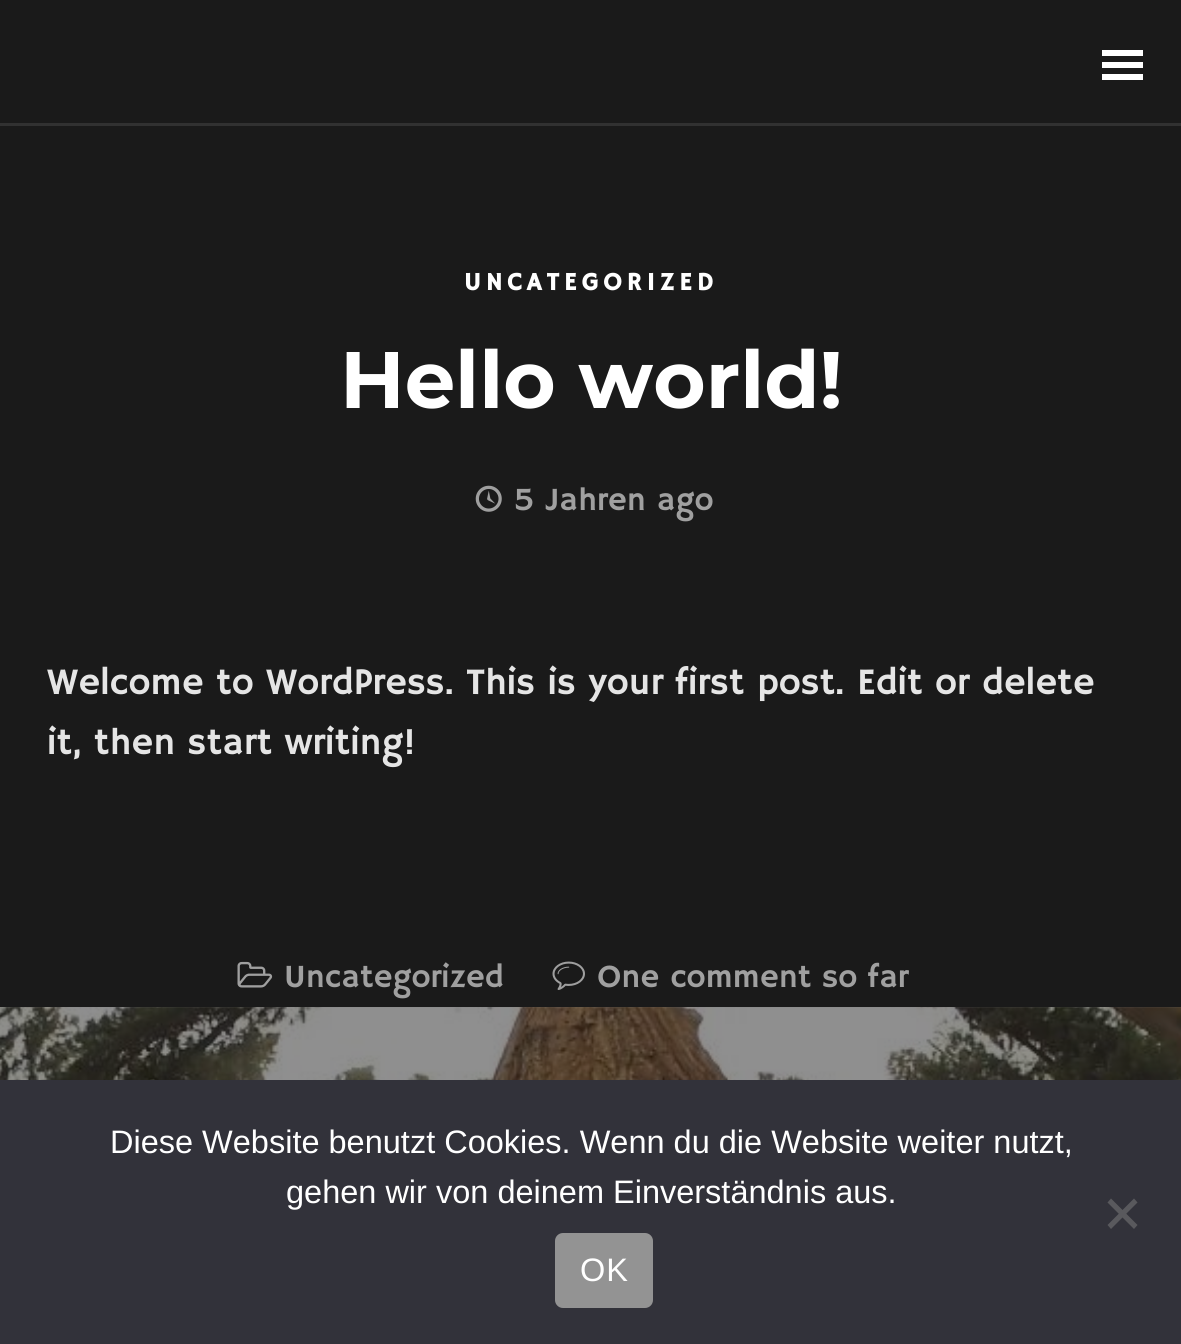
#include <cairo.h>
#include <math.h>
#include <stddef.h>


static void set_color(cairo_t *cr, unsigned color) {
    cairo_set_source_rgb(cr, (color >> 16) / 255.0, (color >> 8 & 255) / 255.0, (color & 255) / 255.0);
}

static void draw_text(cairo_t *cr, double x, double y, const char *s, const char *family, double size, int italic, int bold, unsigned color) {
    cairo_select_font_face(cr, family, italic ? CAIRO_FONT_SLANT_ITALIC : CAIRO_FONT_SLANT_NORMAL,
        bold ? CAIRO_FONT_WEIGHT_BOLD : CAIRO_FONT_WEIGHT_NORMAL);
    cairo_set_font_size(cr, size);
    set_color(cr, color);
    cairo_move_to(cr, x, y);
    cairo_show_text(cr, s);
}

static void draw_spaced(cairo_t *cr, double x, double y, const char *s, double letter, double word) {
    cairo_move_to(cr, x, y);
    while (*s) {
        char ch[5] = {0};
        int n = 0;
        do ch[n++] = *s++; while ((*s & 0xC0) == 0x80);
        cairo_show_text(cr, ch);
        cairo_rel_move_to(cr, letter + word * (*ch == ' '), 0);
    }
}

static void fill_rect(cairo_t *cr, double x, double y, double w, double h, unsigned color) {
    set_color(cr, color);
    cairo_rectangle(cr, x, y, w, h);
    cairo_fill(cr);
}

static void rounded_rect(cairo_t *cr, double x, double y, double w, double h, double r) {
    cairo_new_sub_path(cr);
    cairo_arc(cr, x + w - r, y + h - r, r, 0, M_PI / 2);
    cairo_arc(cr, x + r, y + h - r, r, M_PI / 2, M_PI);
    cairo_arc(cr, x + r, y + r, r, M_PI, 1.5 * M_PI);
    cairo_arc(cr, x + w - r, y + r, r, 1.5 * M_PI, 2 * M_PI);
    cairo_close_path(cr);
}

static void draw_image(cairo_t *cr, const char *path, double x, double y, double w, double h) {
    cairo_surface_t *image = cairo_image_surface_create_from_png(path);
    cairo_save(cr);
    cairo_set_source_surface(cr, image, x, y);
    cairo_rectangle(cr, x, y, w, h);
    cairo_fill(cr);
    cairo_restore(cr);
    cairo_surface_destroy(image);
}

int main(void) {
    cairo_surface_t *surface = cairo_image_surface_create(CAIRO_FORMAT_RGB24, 1181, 1344);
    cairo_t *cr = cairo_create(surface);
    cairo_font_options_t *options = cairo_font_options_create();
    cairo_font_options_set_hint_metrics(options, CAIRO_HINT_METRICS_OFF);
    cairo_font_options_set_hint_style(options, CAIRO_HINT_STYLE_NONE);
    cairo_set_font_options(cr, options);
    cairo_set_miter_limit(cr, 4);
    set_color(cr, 0x1A1A1A);
    cairo_paint(cr);
    fill_rect(cr, 0, 123, 1181, 3, 0x313131);
    set_color(cr, 0xFFFFFF);
    cairo_new_path(cr);
    cairo_move_to(cr, 1102, 80);
    cairo_line_to(cr, 1143, 80);
    cairo_line_to(cr, 1143, 74);
    cairo_line_to(cr, 1102, 74);
    cairo_close_path(cr);
    cairo_move_to(cr, 1102, 50);
    cairo_line_to(cr, 1102, 56);
    cairo_line_to(cr, 1143, 56);
    cairo_line_to(cr, 1143, 50);
    cairo_close_path(cr);
    cairo_move_to(cr, 1102, 68);
    cairo_line_to(cr, 1143, 68);
    cairo_line_to(cr, 1143, 62);
    cairo_line_to(cr, 1102, 62);
    cairo_close_path(cr);
    cairo_fill(cr);
    cairo_select_font_face(cr, "Hammersmith One", CAIRO_FONT_SLANT_NORMAL, CAIRO_FONT_WEIGHT_BOLD);
    cairo_set_font_size(cr, 25);
    draw_spaced(cr, 464, 290, "UNCATEGORIZED", 5, 0);
    draw_text(cr, 340, 408, "Hello world!", "Montserrat", 80, 0, 1, 0xFFFFFF);
    draw_image(cr, "assets/img1.png", 475, 485, 27, 27);
    draw_text(cr, 513, 510, "5 Jahren ago", "Hammersmith One", 32.5, 0, 0, 0xA0A0A0);
    draw_text(cr, 47, 694, "Welcome to WordPress. This is your first post. Edit or delete", "Hammersmith One", 37.5, 0, 0, 0xE5E5E5);
    draw_text(cr, 47, 754, "it, then start writing!", "Hammersmith One", 37.5, 0, 0, 0xE5E5E5);
    draw_image(cr, "assets/img2.png", 237, 961, 36, 27);
    draw_text(cr, 284, 987, "Uncategorized", "Hammersmith One", 32.5, 0, 0, 0xA0A0A0);
    draw_image(cr, "assets/img3.png", 552, 961, 33, 29);
    draw_text(cr, 597, 987, "One comment so far", "Hammersmith One", 32.5, 0, 0, 0xA0A0A0);
    draw_image(cr, "assets/img4.png", 0, 1007, 1181, 73);
    fill_rect(cr, 0, 1080, 1181, 264, 0x32323A);
    draw_text(cr, 110, 1153, "Diese Website benutzt Cookies. Wenn du die Website weiter nutzt,", "Liberation Sans", 32.5, 0, 0, 0xFFFFFF);
    draw_text(cr, 286, 1203, "gehen wir von deinem Einverständnis aus.", "Liberation Sans", 32.5, 0, 0, 0xFFFFFF);
    set_color(cr, 0x59595D);
    cairo_new_path(cr);
    cairo_move_to(cr, 1134, 1198.5);
    cairo_line_to(cr, 1137.5, 1202.5);
    cairo_line_to(cr, 1111, 1229);
    cairo_line_to(cr, 1107.5, 1225);
    cairo_close_path(cr);
    cairo_fill(cr);
    cairo_new_path(cr);
    cairo_move_to(cr, 1107.5, 1202.5);
    cairo_line_to(cr, 1111, 1198.5);
    cairo_line_to(cr, 1137.5, 1225);
    cairo_line_to(cr, 1134, 1229);
    cairo_close_path(cr);
    cairo_fill(cr);
    set_color(cr, 0x939393);
    rounded_rect(cr, 555, 1233, 98, 75, 8);
    cairo_fill(cr);
    set_color(cr, 0xFFFFFF);
    draw_spaced(cr, 580, 1281, "OK", 1, 0);
    cairo_surface_write_to_png(surface, "output.png");
    cairo_font_options_destroy(options);
    cairo_destroy(cr);
    cairo_surface_destroy(surface);
    return 0;
}
